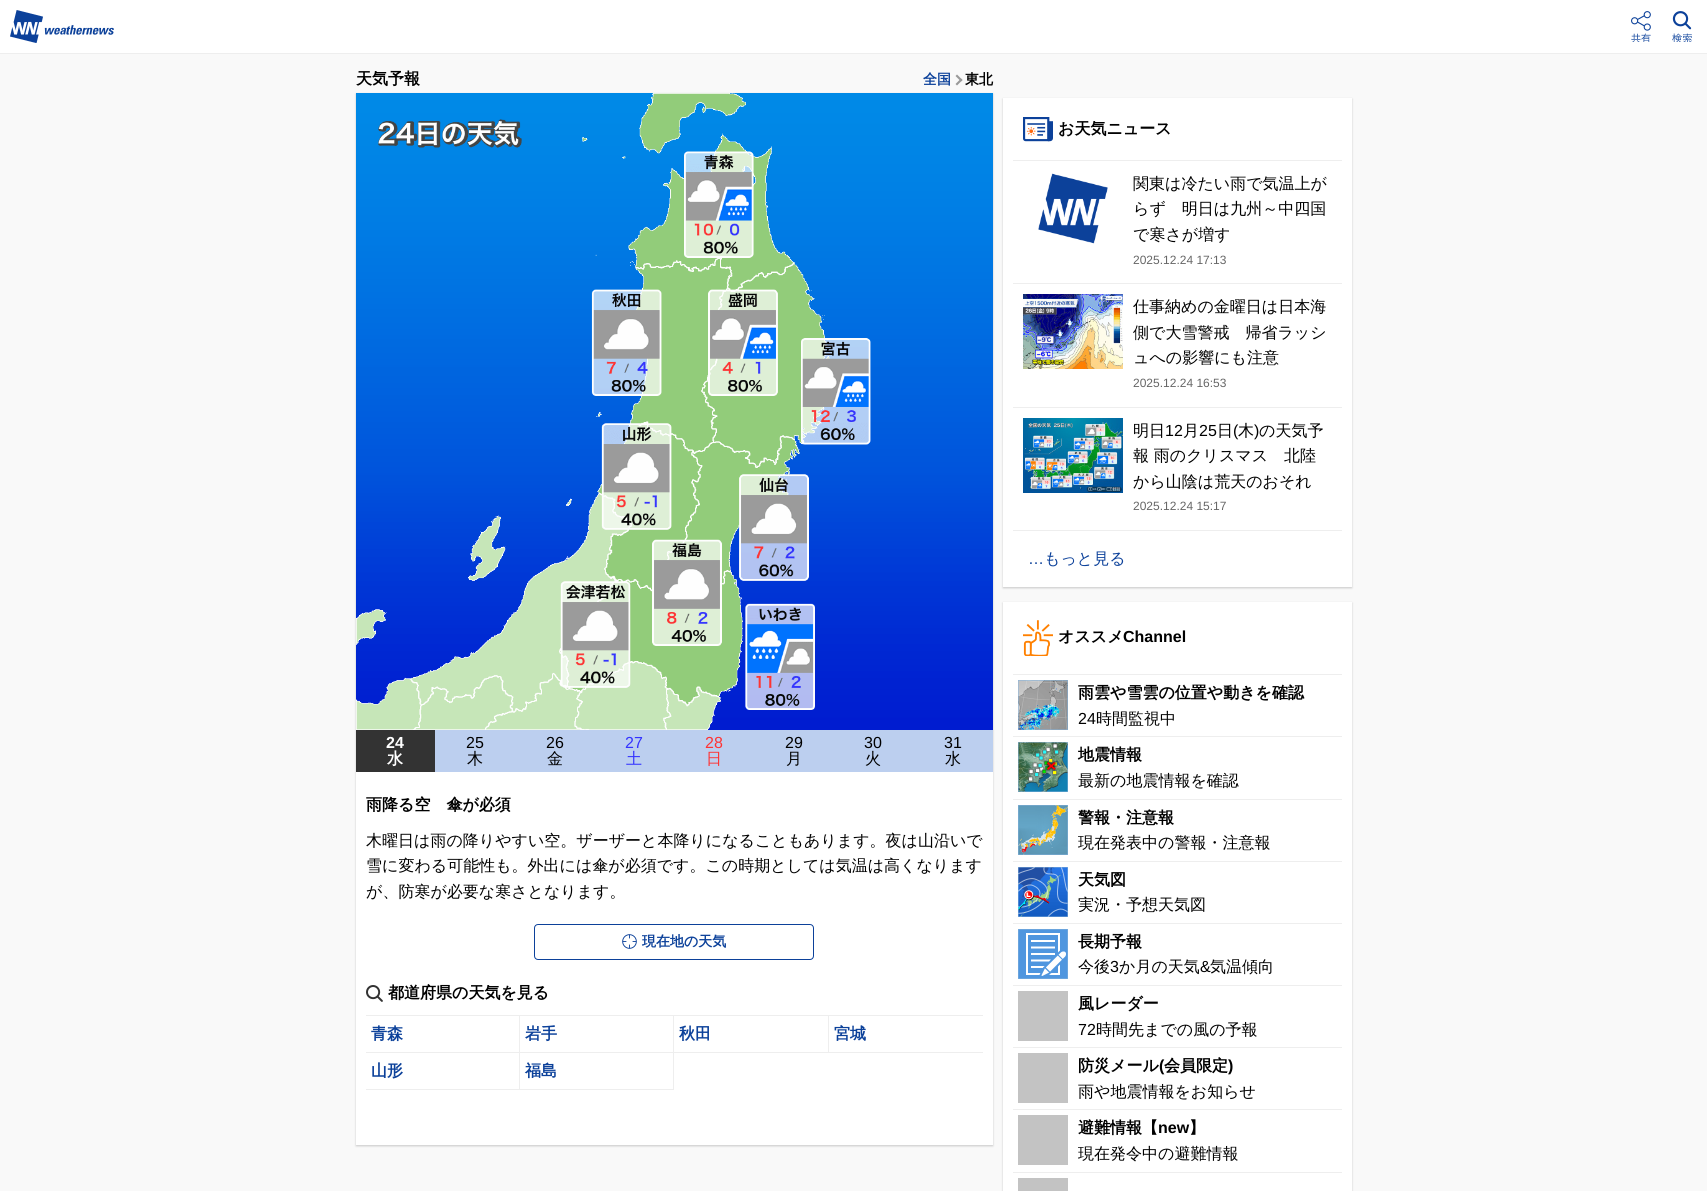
#include <cairo.h>
#include <math.h>
#include <stddef.h>


static void set_color(cairo_t *cr, unsigned color) {
    cairo_set_source_rgb(cr, (color >> 16) / 255.0, (color >> 8 & 255) / 255.0, (color & 255) / 255.0);
}

static void draw_text(cairo_t *cr, double x, double y, const char *s, const char *family, double size, int italic, int bold, unsigned color) {
    cairo_select_font_face(cr, family, italic ? CAIRO_FONT_SLANT_ITALIC : CAIRO_FONT_SLANT_NORMAL,
        bold ? CAIRO_FONT_WEIGHT_BOLD : CAIRO_FONT_WEIGHT_NORMAL);
    cairo_set_font_size(cr, size);
    set_color(cr, color);
    cairo_move_to(cr, x, y);
    cairo_show_text(cr, s);
}

static void fill_rect(cairo_t *cr, double x, double y, double w, double h, unsigned color) {
    set_color(cr, color);
    cairo_rectangle(cr, x, y, w, h);
    cairo_fill(cr);
}

static void rounded_rect(cairo_t *cr, double x, double y, double w, double h, double r) {
    cairo_new_sub_path(cr);
    cairo_arc(cr, x + w - r, y + h - r, r, 0, M_PI / 2);
    cairo_arc(cr, x + r, y + h - r, r, M_PI / 2, M_PI);
    cairo_arc(cr, x + r, y + r, r, M_PI, 1.5 * M_PI);
    cairo_arc(cr, x + w - r, y + r, r, 1.5 * M_PI, 2 * M_PI);
    cairo_close_path(cr);
}

static void draw_shadow(cairo_t *cr, double x, double y, double w, double h, double r, double blur, double alpha) {
    cairo_push_group_with_content(cr, CAIRO_CONTENT_ALPHA);
    cairo_set_operator(cr, CAIRO_OPERATOR_SOURCE);
    for (int i = 15; i >= -15 && fmin(w, h) + blur * i / 3 > 0; i -= 2) {
        double e = blur * i / 6;
        cairo_set_source_rgba(cr, 0, 0, 0, alpha * erfc((i - 1) / 8.5) / 2);
        rounded_rect(cr, x - e, y - e, w + 2 * e, h + 2 * e, fmax(0, fmin(r + e + blur * .6, fmin(w, h) / 2 + e)));
        cairo_fill(cr);
    }
    cairo_pattern_t *soft = cairo_pop_group(cr);
    cairo_mask(cr, soft);
    cairo_pattern_destroy(soft);
}

static void draw_image(cairo_t *cr, const char *path, double x, double y, double w, double h) {
    cairo_surface_t *image = cairo_image_surface_create_from_png(path);
    cairo_save(cr);
    cairo_set_source_surface(cr, image, x, y);
    cairo_rectangle(cr, x, y, w, h);
    cairo_fill(cr);
    cairo_restore(cr);
    cairo_surface_destroy(image);
}

int main(void) {
    cairo_surface_t *surface = cairo_image_surface_create(CAIRO_FORMAT_RGB24, 1707, 1191);
    cairo_t *cr = cairo_create(surface);
    cairo_font_options_t *options = cairo_font_options_create();
    cairo_font_options_set_hint_metrics(options, CAIRO_HINT_METRICS_OFF);
    cairo_font_options_set_hint_style(options, CAIRO_HINT_STYLE_NONE);
    cairo_set_font_options(cr, options);
    cairo_set_miter_limit(cr, 4);
    set_color(cr, 0xF9F9F9);
    cairo_paint(cr);
    fill_rect(cr, 0, 0, 1707, 53, 0xFFFFFF);
    fill_rect(cr, 0, 53, 1707, 1, 0xEEEEEE);
    draw_image(cr, "assets/img1.png", 10, 10, 104, 33);
    draw_image(cr, "assets/img2.png", 1631, 11, 20, 31);
    draw_image(cr, "assets/img3.png", 1672, 11, 20, 31);
    draw_text(cr, 356, 84, "天気予報", "WenQuanYi Zen Hei", 16, 0, 1, 0x000000);
    draw_text(cr, 923, 84, "全国", "WenQuanYi Zen Hei", 14, 0, 1, 0x0C419A);
    set_color(cr, 0x999999);
    cairo_new_path(cr);
    cairo_move_to(cr, 955.5, 76);
    cairo_line_to(cr, 957, 74.5);
    cairo_line_to(cr, 962.5, 80);
    cairo_line_to(cr, 961, 81.5);
    cairo_close_path(cr);
    cairo_fill(cr);
    cairo_new_path(cr);
    cairo_move_to(cr, 955.5, 84);
    cairo_line_to(cr, 961, 78.5);
    cairo_line_to(cr, 962.5, 80);
    cairo_line_to(cr, 957, 85.5);
    cairo_close_path(cr);
    cairo_fill(cr);
    draw_text(cr, 965, 84, "東北", "WenQuanYi Zen Hei", 14, 0, 1, 0x000000);
    set_color(cr, 0x000000);
    draw_shadow(cr, 356, 94, 637, 1052, 0, 1, 0.2);
    fill_rect(cr, 356, 772, 637, 373, 0xFFFFFF);
    draw_image(cr, "assets/img4.png", 356, 93, 637, 637);
    fill_rect(cr, 356, 730, 79, 42, 0x333333);
    draw_text(cr, 386, 748, "24", "Liberation Sans", 16, 0, 1, 0xFFFFFF);
    draw_text(cr, 387, 764, "水", "WenQuanYi Zen Hei", 16, 0, 1, 0xFFFFFF);
    fill_rect(cr, 435, 730, 558, 42, 0xBCCFEF);
    draw_text(cr, 466, 748, "25", "Liberation Sans", 16, 0, 0, 0x000000);
    draw_text(cr, 467, 764, "木", "WenQuanYi Zen Hei Medium", 16, 0, 0, 0x000000);
    draw_text(cr, 546, 748, "26", "Liberation Sans", 16, 0, 0, 0x000000);
    draw_text(cr, 547, 764, "金", "WenQuanYi Zen Hei Medium", 16, 0, 0, 0x000000);
    draw_text(cr, 625, 748, "27", "Liberation Sans", 16, 0, 0, 0x3333FF);
    draw_text(cr, 626, 764, "土", "WenQuanYi Zen Hei Medium", 16, 0, 0, 0x3333FF);
    draw_text(cr, 705, 748, "28", "Liberation Sans", 16, 0, 0, 0xFF3333);
    draw_text(cr, 706, 764, "日", "WenQuanYi Zen Hei Medium", 16, 0, 0, 0xFF3333);
    draw_text(cr, 785, 748, "29", "Liberation Sans", 16, 0, 0, 0x000000);
    draw_text(cr, 786, 764, "月", "WenQuanYi Zen Hei Medium", 16, 0, 0, 0x000000);
    draw_text(cr, 864, 748, "30", "Liberation Sans", 16, 0, 0, 0x000000);
    draw_text(cr, 865, 764, "火", "WenQuanYi Zen Hei Medium", 16, 0, 0, 0x000000);
    draw_text(cr, 944, 748, "31", "Liberation Sans", 16, 0, 0, 0x000000);
    draw_text(cr, 945, 764, "水", "WenQuanYi Zen Hei Medium", 16, 0, 0, 0x000000);
    draw_text(cr, 366, 810, "雨降る空　傘が必須", "WenQuanYi Zen Hei", 16, 0, 1, 0x000000);
    draw_text(cr, 366, 846, "木曜日は雨の降りやすい空。ザーザーと本降りになることもあります。夜は山沿いで", "WenQuanYi Zen Hei Medium", 16, 0, 0, 0x000000);
    draw_text(cr, 366, 871, "雪に変わる可能性も。外出には傘が必須です。この時期としては気温は高くなります", "WenQuanYi Zen Hei Medium", 16, 0, 0, 0x000000);
    draw_text(cr, 366, 897, "が、防寒が必要な寒さとなります。", "WenQuanYi Zen Hei Medium", 16, 0, 0, 0x000000);
    rounded_rect(cr, 534.5, 924.5, 279, 35, 3.5);
    set_color(cr, 0x0C419A);
    cairo_set_line_width(cr, 1);
    cairo_stroke(cr);
    draw_image(cr, "assets/img5.png", 622, 934, 15, 15);
    draw_text(cr, 642, 946, "現在地の天気", "WenQuanYi Zen Hei", 14, 0, 1, 0x0C419A);
    draw_image(cr, "assets/img6.png", 366, 985, 17, 17);
    draw_text(cr, 388, 998, "都道府県の天気を見る", "WenQuanYi Zen Hei", 16, 0, 1, 0x000000);
    fill_rect(cr, 366, 1015, 617, 1, 0xEEEEEE);
    fill_rect(cr, 519, 1016, 1, 74, 0xEEEEEE);
    fill_rect(cr, 366, 1052, 154, 1, 0xEEEEEE);
    draw_text(cr, 371, 1039, "青森", "WenQuanYi Zen Hei", 16, 0, 1, 0x0C419A);
    fill_rect(cr, 673, 1016, 1, 74, 0xEEEEEE);
    fill_rect(cr, 520, 1052, 154, 1, 0xEEEEEE);
    draw_text(cr, 525, 1039, "岩手", "WenQuanYi Zen Hei", 16, 0, 1, 0x0C419A);
    fill_rect(cr, 828, 1016, 1, 37, 0xEEEEEE);
    fill_rect(cr, 674, 1052, 309, 1, 0xEEEEEE);
    draw_text(cr, 679, 1039, "秋田", "WenQuanYi Zen Hei", 16, 0, 1, 0x0C419A);
    draw_text(cr, 834, 1039, "宮城", "WenQuanYi Zen Hei", 16, 0, 1, 0x0C419A);
    fill_rect(cr, 366, 1089, 308, 1, 0xEEEEEE);
    draw_text(cr, 371, 1076, "山形", "WenQuanYi Zen Hei", 16, 0, 1, 0x0C419A);
    draw_text(cr, 525, 1076, "福島", "WenQuanYi Zen Hei", 16, 0, 1, 0x0C419A);
    set_color(cr, 0x000000);
    draw_shadow(cr, 1003, 99, 349, 489, 0, 1, 0.2);
    fill_rect(cr, 1003, 98, 349, 489, 0xFFFFFF);
    draw_image(cr, "assets/img7.png", 1023, 117, 30, 25);
    draw_text(cr, 1058, 134, "お天気ニュース", "WenQuanYi Zen Hei", 16, 0, 1, 0x000000);
    fill_rect(cr, 1013, 160, 329, 1, 0xEEEEEE);
    fill_rect(cr, 1013, 530, 329, 1, 0xEEEEEE);
    fill_rect(cr, 1013, 283, 329, 1, 0xEEEEEE);
    draw_image(cr, "assets/img8.png", 1038, 173, 70, 71);
    draw_text(cr, 1133, 189, "関東は冷たい雨で気温上が", "WenQuanYi Zen Hei Medium", 16, 0, 0, 0x000000);
    draw_text(cr, 1133, 214, "らず　明日は九州～中四国", "WenQuanYi Zen Hei Medium", 16, 0, 0, 0x000000);
    draw_text(cr, 1133, 240, "で寒さが増す", "WenQuanYi Zen Hei Medium", 16, 0, 0, 0x000000);
    draw_text(cr, 1133, 264, "2025.12.24 17:13", "Liberation Sans", 12, 0, 0, 0x666666);
    fill_rect(cr, 1013, 407, 329, 1, 0xEEEEEE);
    draw_image(cr, "assets/img9.png", 1023, 294, 100, 75);
    draw_text(cr, 1133, 312, "仕事納めの金曜日は日本海", "WenQuanYi Zen Hei Medium", 16, 0, 0, 0x000000);
    draw_text(cr, 1133, 338, "側で大雪警戒　帰省ラッシ", "WenQuanYi Zen Hei Medium", 16, 0, 0, 0x000000);
    draw_text(cr, 1133, 363, "ュへの影響にも注意", "WenQuanYi Zen Hei Medium", 16, 0, 0, 0x000000);
    draw_text(cr, 1133, 387, "2025.12.24 16:53", "Liberation Sans", 12, 0, 0, 0x666666);
    draw_image(cr, "assets/img10.png", 1023, 418, 100, 75);
    draw_text(cr, 1133, 436, "明日", "WenQuanYi Zen Hei Medium", 16, 0, 0, 0x000000);
    draw_text(cr, 1165, 436, "12", "Liberation Sans", 16, 0, 0, 0x000000);
    draw_text(cr, 1183, 436, "月", "WenQuanYi Zen Hei Medium", 16, 0, 0, 0x000000);
    draw_text(cr, 1199, 436, "25", "Liberation Sans", 16, 0, 0, 0x000000);
    draw_text(cr, 1217, 436, "日", "WenQuanYi Zen Hei Medium", 16, 0, 0, 0x000000);
    draw_text(cr, 1233, 436, "(", "Liberation Sans", 16, 0, 0, 0x000000);
    draw_text(cr, 1238, 436, "木", "WenQuanYi Zen Hei Medium", 16, 0, 0, 0x000000);
    draw_text(cr, 1254, 436, ")", "Liberation Sans", 16, 0, 0, 0x000000);
    draw_text(cr, 1259, 436, "の天気予", "WenQuanYi Zen Hei Medium", 16, 0, 0, 0x000000);
    draw_text(cr, 1133, 461, "報 雨のクリスマス　北陸", "WenQuanYi Zen Hei Medium", 16, 0, 0, 0x000000);
    draw_text(cr, 1133, 487, "から山陰は荒天のおそれ", "WenQuanYi Zen Hei Medium", 16, 0, 0, 0x000000);
    draw_text(cr, 1133, 510, "2025.12.24 15:17", "Liberation Sans", 12, 0, 0, 0x666666);
    draw_text(cr, 1028, 564, "…", "Liberation Sans", 16, 0, 0, 0x0C419A);
    draw_text(cr, 1044, 564, "もっと見る", "WenQuanYi Zen Hei Medium", 16, 0, 0, 0x0C419A);
    set_color(cr, 0x000000);
    draw_shadow(cr, 1003, 603, 349, 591, 0, 1, 0.2);
    fill_rect(cr, 1003, 602, 349, 589, 0xFFFFFF);
    draw_image(cr, "assets/img11.png", 1023, 620, 30, 36);
    draw_text(cr, 1058, 642, "オススメ", "WenQuanYi Zen Hei", 16, 0, 1, 0x000000);
    draw_text(cr, 1123, 642, "Channel", "Liberation Sans", 16, 0, 1, 0x000000);
    fill_rect(cr, 1013, 674, 329, 1, 0xEEEEEE);
    fill_rect(cr, 1013, 736, 329, 1, 0xEEEEEE);
    draw_image(cr, "assets/img12.png", 1018, 680, 50, 50);
    draw_text(cr, 1078, 698, "雨雲や雪雲の位置や動きを確認", "WenQuanYi Zen Hei", 16, 0, 1, 0x000000);
    draw_text(cr, 1078, 724, "24", "Liberation Sans", 16, 0, 0, 0x000000);
    draw_text(cr, 1096, 724, "時間監視中", "WenQuanYi Zen Hei Medium", 16, 0, 0, 0x000000);
    fill_rect(cr, 1013, 799, 329, 1, 0xEEEEEE);
    draw_image(cr, "assets/img13.png", 1018, 742, 50, 50);
    draw_text(cr, 1078, 760, "地震情報", "WenQuanYi Zen Hei", 16, 0, 1, 0x000000);
    draw_text(cr, 1078, 786, "最新の地震情報を確認", "WenQuanYi Zen Hei Medium", 16, 0, 0, 0x000000);
    fill_rect(cr, 1013, 861, 329, 1, 0xEEEEEE);
    draw_image(cr, "assets/img14.png", 1018, 805, 50, 50);
    draw_text(cr, 1078, 823, "警報・注意報", "WenQuanYi Zen Hei", 16, 0, 1, 0x000000);
    draw_text(cr, 1078, 848, "現在発表中の警報・注意報", "WenQuanYi Zen Hei Medium", 16, 0, 0, 0x000000);
    fill_rect(cr, 1013, 923, 329, 1, 0xEEEEEE);
    draw_image(cr, "assets/img15.png", 1018, 867, 50, 50);
    draw_text(cr, 1078, 885, "天気図", "WenQuanYi Zen Hei", 16, 0, 1, 0x000000);
    draw_text(cr, 1078, 910, "実況・予想天気図", "WenQuanYi Zen Hei Medium", 16, 0, 0, 0x000000);
    fill_rect(cr, 1013, 985, 329, 1, 0xEEEEEE);
    draw_image(cr, "assets/img16.png", 1018, 929, 50, 50);
    draw_text(cr, 1078, 947, "長期予報", "WenQuanYi Zen Hei", 16, 0, 1, 0x000000);
    draw_text(cr, 1078, 972, "今後", "WenQuanYi Zen Hei Medium", 16, 0, 0, 0x000000);
    draw_text(cr, 1110, 972, "3", "Liberation Sans", 16, 0, 0, 0x000000);
    draw_text(cr, 1119, 972, "か月の天気", "WenQuanYi Zen Hei Medium", 16, 0, 0, 0x000000);
    draw_text(cr, 1200, 972, "&", "Liberation Sans", 16, 0, 0, 0x000000);
    draw_text(cr, 1210, 972, "気温傾向", "WenQuanYi Zen Hei Medium", 16, 0, 0, 0x000000);
    fill_rect(cr, 1013, 1047, 329, 1, 0xEEEEEE);
    fill_rect(cr, 1018, 991, 50, 50, 0xC3C3C3);
    draw_text(cr, 1078, 1009, "風レーダー", "WenQuanYi Zen Hei", 16, 0, 1, 0x000000);
    draw_text(cr, 1078, 1035, "72", "Liberation Sans", 16, 0, 0, 0x000000);
    draw_text(cr, 1096, 1035, "時間先までの風の予報", "WenQuanYi Zen Hei Medium", 16, 0, 0, 0x000000);
    fill_rect(cr, 1013, 1109, 329, 1, 0xEEEEEE);
    fill_rect(cr, 1018, 1053, 50, 50, 0xC3C3C3);
    draw_text(cr, 1078, 1071, "防災メール", "WenQuanYi Zen Hei", 16, 0, 1, 0x000000);
    draw_text(cr, 1159, 1071, "(", "Liberation Sans", 16, 0, 1, 0x000000);
    draw_text(cr, 1164, 1071, "会員限定", "WenQuanYi Zen Hei", 16, 0, 1, 0x000000);
    draw_text(cr, 1228, 1071, ")", "Liberation Sans", 16, 0, 1, 0x000000);
    draw_text(cr, 1078, 1097, "雨や地震情報をお知らせ", "WenQuanYi Zen Hei Medium", 16, 0, 0, 0x000000);
    fill_rect(cr, 1013, 1172, 329, 1, 0xEEEEEE);
    fill_rect(cr, 1018, 1115, 50, 50, 0xC3C3C3);
    draw_text(cr, 1078, 1133, "避難情報【", "WenQuanYi Zen Hei", 16, 0, 1, 0x000000);
    draw_text(cr, 1158, 1133, "new", "Liberation Sans", 16, 0, 1, 0x000000);
    draw_text(cr, 1189, 1133, "】", "WenQuanYi Zen Hei", 16, 0, 1, 0x000000);
    draw_text(cr, 1078, 1159, "現在発令中の避難情報", "WenQuanYi Zen Hei Medium", 16, 0, 0, 0x000000);
    fill_rect(cr, 1018, 1178, 50, 13, 0xC3C3C3);
    cairo_surface_write_to_png(surface, "output.png");
    cairo_font_options_destroy(options);
    cairo_destroy(cr);
    cairo_surface_destroy(surface);
    return 0;
}
